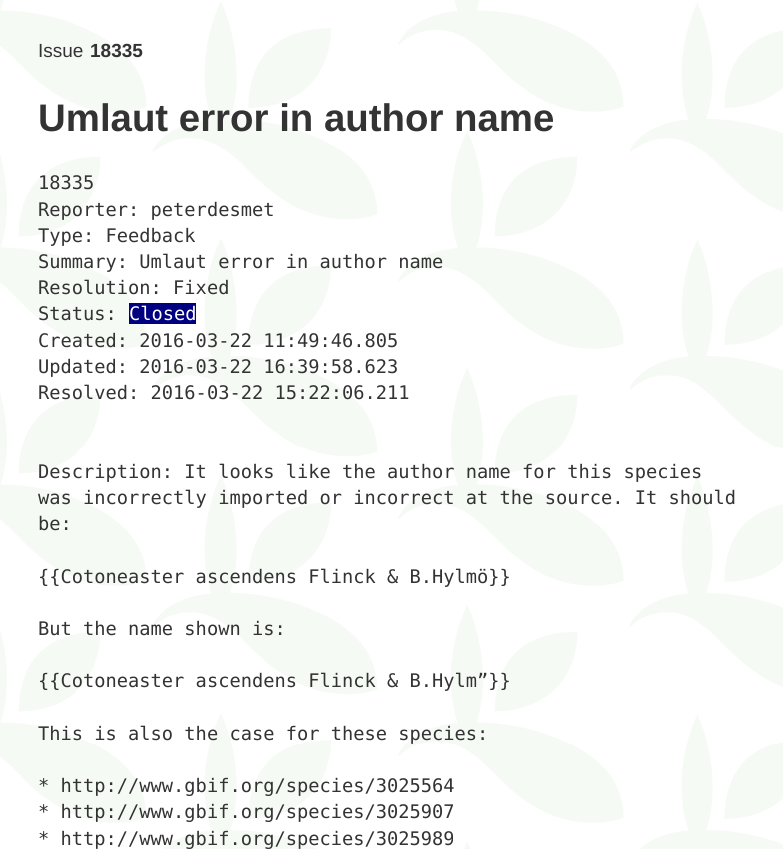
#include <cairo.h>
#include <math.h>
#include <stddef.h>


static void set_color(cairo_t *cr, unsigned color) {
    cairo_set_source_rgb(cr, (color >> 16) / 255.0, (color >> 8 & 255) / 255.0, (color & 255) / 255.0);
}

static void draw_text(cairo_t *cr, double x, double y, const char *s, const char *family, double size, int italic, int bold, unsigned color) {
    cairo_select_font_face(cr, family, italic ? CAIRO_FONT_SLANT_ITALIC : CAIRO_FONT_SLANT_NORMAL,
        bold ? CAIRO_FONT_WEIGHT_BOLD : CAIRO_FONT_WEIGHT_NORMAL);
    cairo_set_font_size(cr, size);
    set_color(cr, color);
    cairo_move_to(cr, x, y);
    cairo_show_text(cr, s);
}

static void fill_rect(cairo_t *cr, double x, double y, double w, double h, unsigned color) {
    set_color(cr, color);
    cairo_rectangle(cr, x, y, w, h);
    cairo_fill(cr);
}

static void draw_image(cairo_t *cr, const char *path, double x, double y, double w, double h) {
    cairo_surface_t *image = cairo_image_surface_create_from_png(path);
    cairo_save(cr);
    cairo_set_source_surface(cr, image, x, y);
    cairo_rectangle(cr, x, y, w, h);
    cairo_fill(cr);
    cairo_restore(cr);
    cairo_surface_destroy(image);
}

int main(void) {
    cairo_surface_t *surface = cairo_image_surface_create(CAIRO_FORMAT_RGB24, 783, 849);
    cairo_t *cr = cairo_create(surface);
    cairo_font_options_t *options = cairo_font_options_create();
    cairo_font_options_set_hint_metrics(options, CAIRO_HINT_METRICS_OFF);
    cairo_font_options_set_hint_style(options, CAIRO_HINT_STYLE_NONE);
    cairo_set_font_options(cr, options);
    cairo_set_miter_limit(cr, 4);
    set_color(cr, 0xFFFFFF);
    cairo_paint(cr);
    draw_image(cr, "assets/img1.png", 0, 0, 783, 849);
    draw_text(cr, 38, 57, "Issue", "Liberation Sans", 19, 0, 0, 0x333333);
    draw_text(cr, 90, 57, "18335", "Liberation Sans", 19, 0, 1, 0x333333);
    draw_text(cr, 38, 131, "Umlaut error in author name", "Liberation Sans", 38.4, 0, 1, 0x333333);
    draw_text(cr, 38, 189, "18335", "DejaVu Sans Mono", 18.7, 0, 0, 0x333333);
    draw_text(cr, 38, 216, "Reporter: peterdesmet", "DejaVu Sans Mono", 18.7, 0, 0, 0x333333);
    draw_text(cr, 38, 242, "Type: Feedback", "DejaVu Sans Mono", 18.7, 0, 0, 0x333333);
    draw_text(cr, 38, 268, "Summary: Umlaut error in author name", "DejaVu Sans Mono", 18.7, 0, 0, 0x333333);
    draw_text(cr, 38, 294, "Resolution: Fixed", "DejaVu Sans Mono", 18.7, 0, 0, 0x333333);
    draw_text(cr, 38, 320, "Status:", "DejaVu Sans Mono", 18.7, 0, 0, 0x333333);
    fill_rect(cr, 129, 303, 67, 21, 0x000080);
    draw_text(cr, 129, 320, "Closed", "DejaVu Sans Mono", 18.7, 0, 0, 0xFFFFFF);
    draw_text(cr, 38, 347, "Created: 2016-03-22 11:49:46.805", "DejaVu Sans Mono", 18.7, 0, 0, 0x333333);
    draw_text(cr, 38, 373, "Updated: 2016-03-22 16:39:58.623", "DejaVu Sans Mono", 18.7, 0, 0, 0x333333);
    draw_text(cr, 38, 399, "Resolved: 2016-03-22 15:22:06.211", "DejaVu Sans Mono", 18.7, 0, 0, 0x333333);
    draw_text(cr, 38, 478, "Description: It looks like the author name for this species", "DejaVu Sans Mono", 18.7, 0, 0, 0x333333);
    draw_text(cr, 38, 504, "was incorrectly imported or incorrect at the source. It should", "DejaVu Sans Mono", 18.7, 0, 0, 0x333333);
    draw_text(cr, 38, 530, "be:", "DejaVu Sans Mono", 18.7, 0, 0, 0x333333);
    draw_text(cr, 38, 583, "{{Cotoneaster ascendens Flinck & B.Hylmö}}", "DejaVu Sans Mono", 18.7, 0, 0, 0x333333);
    draw_text(cr, 38, 635, "But the name shown is:", "DejaVu Sans Mono", 18.7, 0, 0, 0x333333);
    draw_text(cr, 38, 687, "{{Cotoneaster ascendens Flinck & B.Hylm”}}", "DejaVu Sans Mono", 18.7, 0, 0, 0x333333);
    draw_text(cr, 38, 740, "This is also the case for these species:", "DejaVu Sans Mono", 18.7, 0, 0, 0x333333);
    draw_text(cr, 38, 792, "* http://www.gbif.org/species/3025564", "DejaVu Sans Mono", 18.7, 0, 0, 0x333333);
    draw_text(cr, 38, 818, "* http://www.gbif.org/species/3025907", "DejaVu Sans Mono", 18.7, 0, 0, 0x333333);
    draw_text(cr, 38, 845, "* http://www.gbif.org/species/3025989", "DejaVu Sans Mono", 18.7, 0, 0, 0x333333);
    cairo_surface_write_to_png(surface, "output.png");
    cairo_font_options_destroy(options);
    cairo_destroy(cr);
    cairo_surface_destroy(surface);
    return 0;
}
